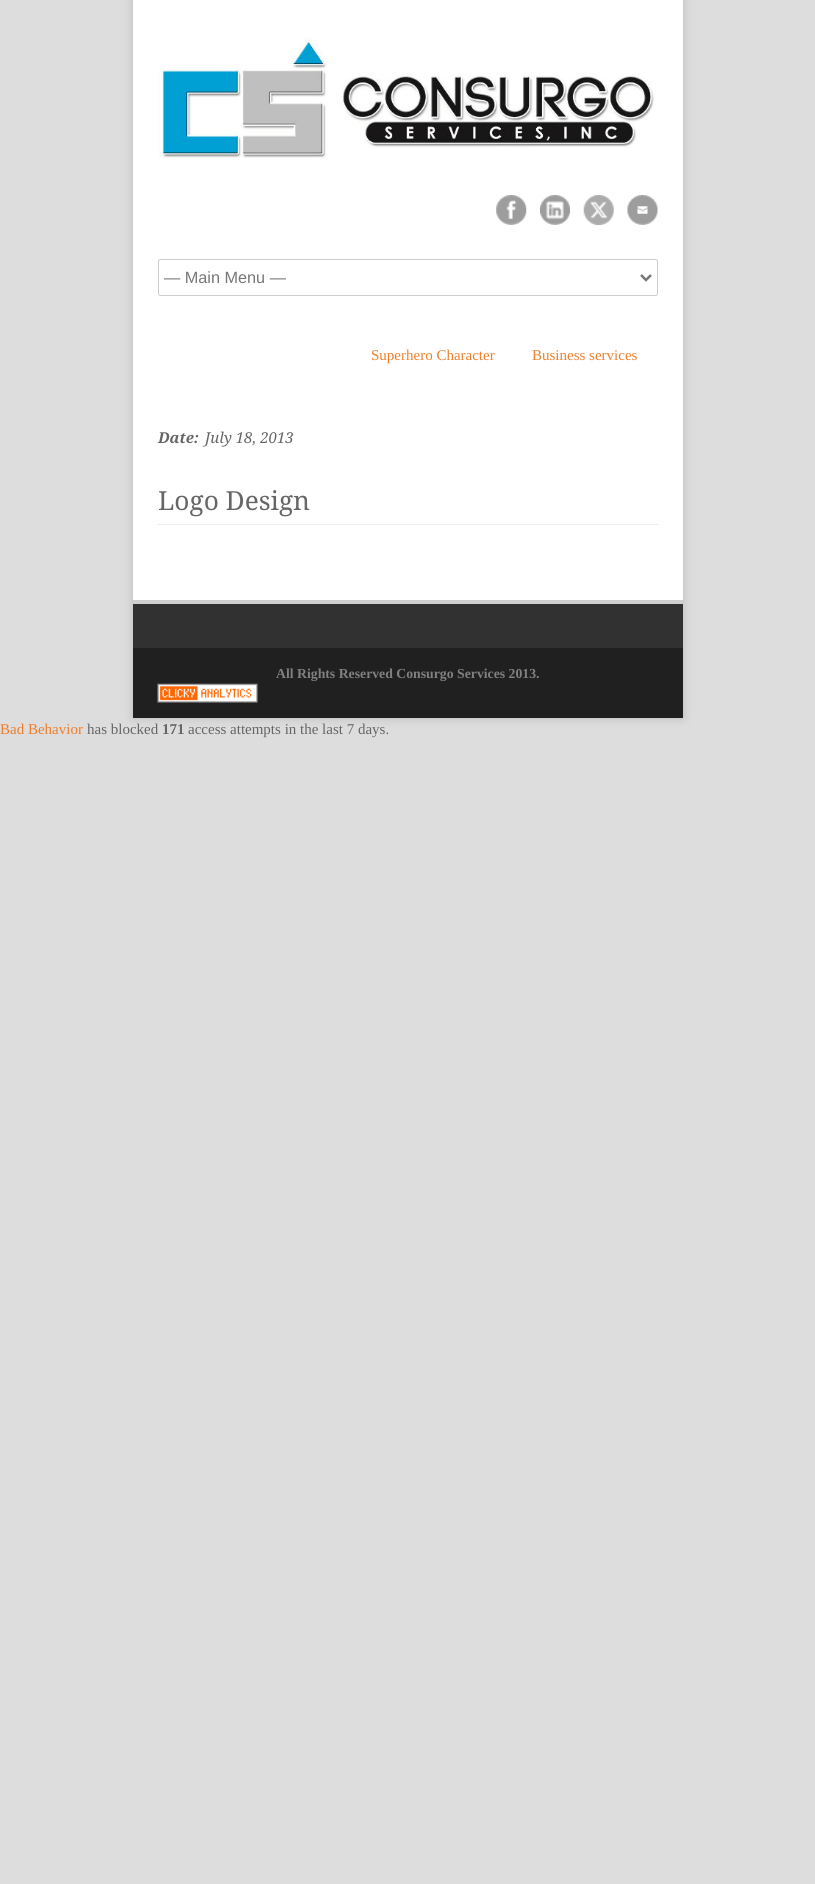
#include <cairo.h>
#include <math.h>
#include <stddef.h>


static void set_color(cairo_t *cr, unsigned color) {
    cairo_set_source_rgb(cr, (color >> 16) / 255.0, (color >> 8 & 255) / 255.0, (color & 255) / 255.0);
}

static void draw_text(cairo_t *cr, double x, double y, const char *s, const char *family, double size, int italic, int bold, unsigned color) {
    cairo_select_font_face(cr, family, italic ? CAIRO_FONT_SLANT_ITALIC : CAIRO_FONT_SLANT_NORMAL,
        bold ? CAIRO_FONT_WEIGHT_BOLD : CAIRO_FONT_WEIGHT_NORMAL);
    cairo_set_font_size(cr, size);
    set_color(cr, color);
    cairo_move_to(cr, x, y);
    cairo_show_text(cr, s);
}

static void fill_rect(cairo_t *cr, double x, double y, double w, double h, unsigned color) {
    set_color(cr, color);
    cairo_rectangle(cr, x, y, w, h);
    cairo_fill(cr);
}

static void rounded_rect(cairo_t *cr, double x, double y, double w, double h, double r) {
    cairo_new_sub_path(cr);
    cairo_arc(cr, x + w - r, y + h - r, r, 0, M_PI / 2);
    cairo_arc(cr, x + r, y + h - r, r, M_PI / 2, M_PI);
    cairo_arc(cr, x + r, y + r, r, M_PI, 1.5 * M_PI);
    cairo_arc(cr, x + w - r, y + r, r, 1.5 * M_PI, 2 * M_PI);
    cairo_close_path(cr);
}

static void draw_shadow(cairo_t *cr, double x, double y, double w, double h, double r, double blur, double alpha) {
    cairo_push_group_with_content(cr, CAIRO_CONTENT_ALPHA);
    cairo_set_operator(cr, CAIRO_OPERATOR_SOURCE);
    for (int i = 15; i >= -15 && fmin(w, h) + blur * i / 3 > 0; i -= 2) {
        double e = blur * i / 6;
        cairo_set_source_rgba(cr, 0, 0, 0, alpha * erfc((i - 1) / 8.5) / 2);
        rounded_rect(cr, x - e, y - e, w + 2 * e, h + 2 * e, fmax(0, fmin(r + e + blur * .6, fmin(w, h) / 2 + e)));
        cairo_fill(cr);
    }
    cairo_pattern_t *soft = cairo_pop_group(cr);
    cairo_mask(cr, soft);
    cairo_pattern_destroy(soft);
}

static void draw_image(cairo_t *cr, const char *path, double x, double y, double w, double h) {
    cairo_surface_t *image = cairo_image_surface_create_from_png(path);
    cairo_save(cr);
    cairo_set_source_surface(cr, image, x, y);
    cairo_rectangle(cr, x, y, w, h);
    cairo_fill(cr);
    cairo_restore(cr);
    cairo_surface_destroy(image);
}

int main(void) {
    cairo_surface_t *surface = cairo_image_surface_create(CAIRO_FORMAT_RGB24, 815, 1884);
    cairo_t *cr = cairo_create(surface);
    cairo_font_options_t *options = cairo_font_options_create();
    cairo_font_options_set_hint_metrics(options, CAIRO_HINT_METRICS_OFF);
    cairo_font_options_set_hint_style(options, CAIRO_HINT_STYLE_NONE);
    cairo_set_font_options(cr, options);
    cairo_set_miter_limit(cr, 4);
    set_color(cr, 0xDDDDDD);
    cairo_paint(cr);
    set_color(cr, 0xBBBBBB);
    draw_shadow(cr, 133, 0, 550, 718, 0, 5, 1);
    fill_rect(cr, 133, 0, 550, 600, 0xFFFFFF);
    draw_image(cr, "assets/img1.png", 158, 37, 496, 123);
    draw_image(cr, "assets/img2.png", 496, 195, 31, 30);
    draw_image(cr, "assets/img3.png", 540, 195, 30, 30);
    draw_image(cr, "assets/img4.png", 583, 195, 31, 30);
    draw_image(cr, "assets/img5.png", 627, 195, 31, 30);
    rounded_rect(cr, 158.5, 259.5, 499, 36, 2);
    set_color(cr, 0xCCCCCC);
    cairo_set_line_width(cr, 1);
    cairo_stroke(cr);
    cairo_new_path(cr);
    cairo_move_to(cr, 641, 275);
    cairo_line_to(cr, 646, 280);
    cairo_line_to(cr, 651, 275);
    set_color(cr, 0x777777);
    cairo_set_line_width(cr, 2.5);
    cairo_stroke(cr);
    draw_text(cr, 164, 283, "— Main Menu —", "Liberation Sans", 16.25, 0, 0, 0x777777);
    draw_text(cr, 371, 360, "Superhero Character", "Liberation Serif", 15, 0, 0, 0xEF7F2C);
    draw_text(cr, 532, 360, "Business services", "Liberation Serif", 15, 0, 0, 0xEF7F2C);
    draw_text(cr, 158, 443, "Date:", "Droid Serif", 15, 1, 1, 0x666666);
    draw_text(cr, 205, 443, "July 18, 2013", "Droid Serif", 15, 1, 0, 0x666666);
    fill_rect(cr, 158, 524, 500, 1, 0xECECEC);
    draw_text(cr, 158, 510, "Logo Design", "Droid Serif", 26.25, 0, 0, 0x666666);
    fill_rect(cr, 133, 604, 550, 44, 0x313131);
    fill_rect(cr, 133, 600, 550, 4, 0xCFCFCF);
    fill_rect(cr, 133, 648, 550, 70, 0x202020);
    draw_text(cr, 276, 678, "All Rights Reserved Consurgo Services 2013.", "Liberation Serif", 13.75, 0, 1, 0x808080);
    draw_image(cr, "assets/img6.png", 157, 683, 101, 20);
    draw_text(cr, 0, 734, "Bad Behavior", "Liberation Serif", 15, 0, 0, 0xEF7F2C);
    draw_text(cr, 87, 734, "has blocked", "Liberation Serif", 15, 0, 0, 0x666666);
    draw_text(cr, 162, 734, "171", "Liberation Serif", 15, 0, 1, 0x666666);
    draw_text(cr, 188, 734, "access attempts in the last 7 days.", "Liberation Serif", 15, 0, 0, 0x666666);
    cairo_surface_write_to_png(surface, "output.png");
    cairo_font_options_destroy(options);
    cairo_destroy(cr);
    cairo_surface_destroy(surface);
    return 0;
}
